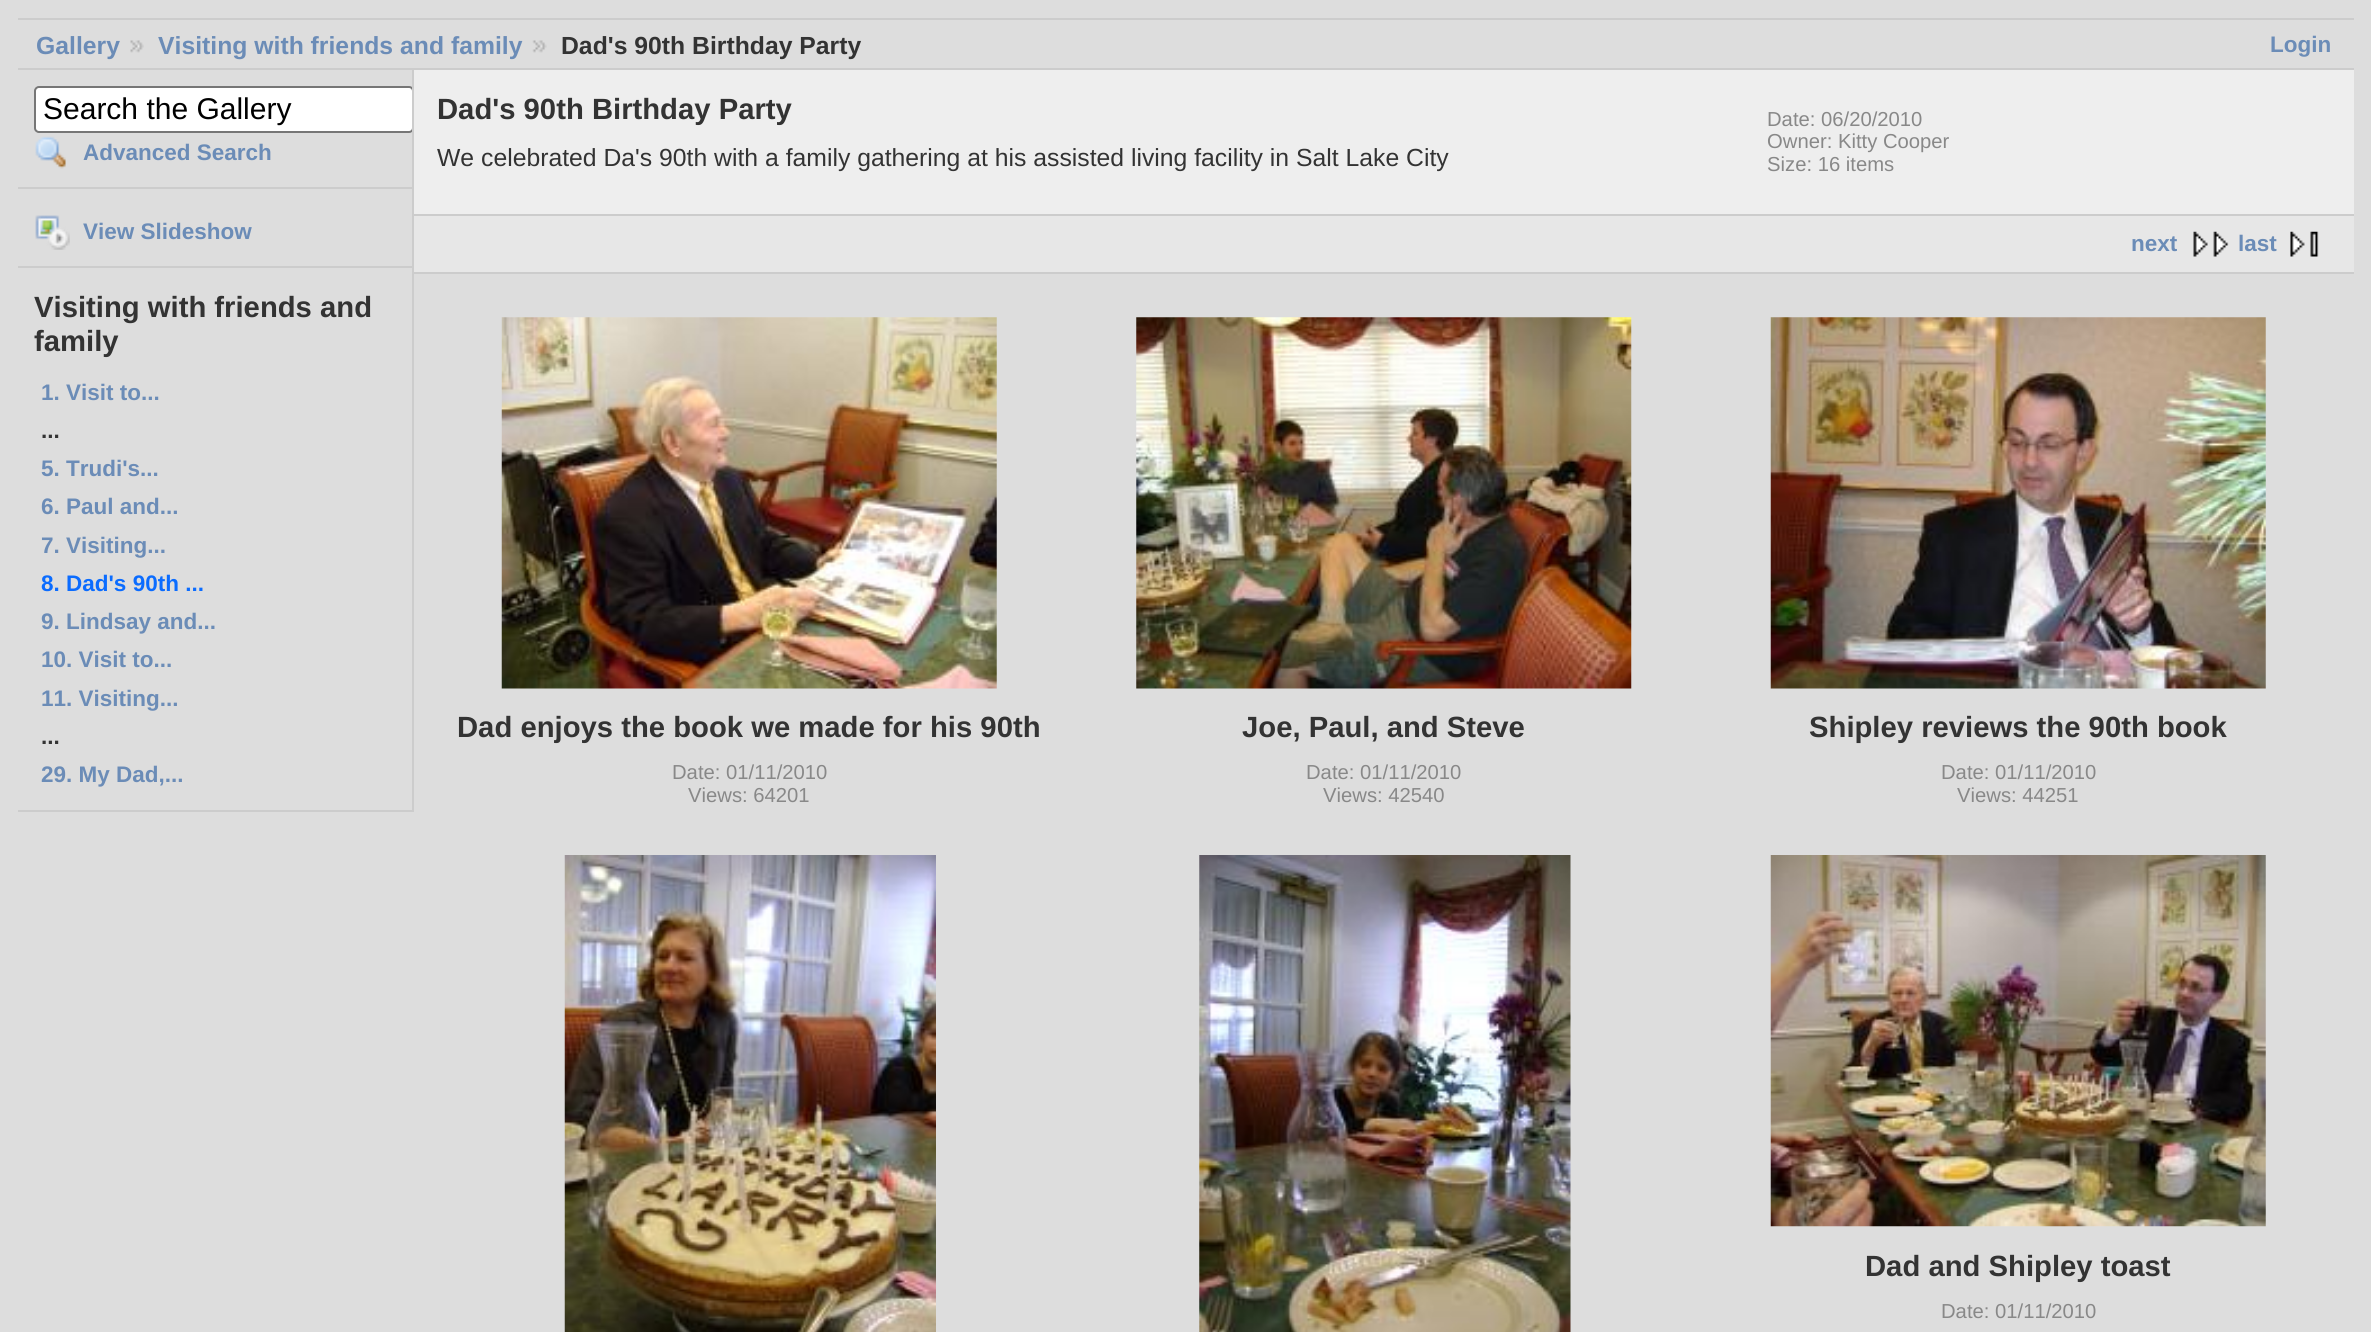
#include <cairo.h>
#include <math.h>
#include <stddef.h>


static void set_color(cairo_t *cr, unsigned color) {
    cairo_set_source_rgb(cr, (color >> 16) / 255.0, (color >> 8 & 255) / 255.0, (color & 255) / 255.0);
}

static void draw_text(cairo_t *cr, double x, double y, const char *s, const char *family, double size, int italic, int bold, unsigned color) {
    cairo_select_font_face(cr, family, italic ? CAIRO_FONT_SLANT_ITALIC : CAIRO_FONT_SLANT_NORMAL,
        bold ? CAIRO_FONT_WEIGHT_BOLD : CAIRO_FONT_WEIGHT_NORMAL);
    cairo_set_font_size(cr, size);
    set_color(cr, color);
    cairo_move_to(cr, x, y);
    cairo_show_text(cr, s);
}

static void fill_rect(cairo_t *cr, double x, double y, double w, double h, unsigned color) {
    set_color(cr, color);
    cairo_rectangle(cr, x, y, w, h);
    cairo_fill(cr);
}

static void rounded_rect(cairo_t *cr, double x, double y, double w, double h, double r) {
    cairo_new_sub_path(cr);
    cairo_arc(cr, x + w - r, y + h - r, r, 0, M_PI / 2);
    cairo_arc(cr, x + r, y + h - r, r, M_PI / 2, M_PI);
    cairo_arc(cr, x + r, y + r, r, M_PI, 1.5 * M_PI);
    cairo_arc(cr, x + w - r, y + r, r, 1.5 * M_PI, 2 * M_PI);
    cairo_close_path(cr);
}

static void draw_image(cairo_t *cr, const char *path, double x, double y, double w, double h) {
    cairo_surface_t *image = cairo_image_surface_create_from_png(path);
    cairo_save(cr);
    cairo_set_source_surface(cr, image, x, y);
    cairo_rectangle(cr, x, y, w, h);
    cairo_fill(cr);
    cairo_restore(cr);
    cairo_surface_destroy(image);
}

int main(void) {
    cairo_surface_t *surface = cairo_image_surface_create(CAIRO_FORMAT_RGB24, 2371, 1332);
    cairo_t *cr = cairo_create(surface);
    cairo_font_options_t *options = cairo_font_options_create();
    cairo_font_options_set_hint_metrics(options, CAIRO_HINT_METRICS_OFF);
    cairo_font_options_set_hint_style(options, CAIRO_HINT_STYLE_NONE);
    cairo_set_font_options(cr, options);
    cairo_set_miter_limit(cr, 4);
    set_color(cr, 0xDDDDDD);
    cairo_paint(cr);
    fill_rect(cr, 18, 18, 2336, 2, 0xCCCCCC);
    fill_rect(cr, 18, 68, 2336, 2, 0xCCCCCC);
    draw_text(cr, 36, 54, "Gallery", "Liberation Sans", 24.75, 0, 1, 0x6B8CB7);
    draw_image(cr, "assets/img1.png", 130, 40, 14, 13);
    draw_text(cr, 158, 54, "Visiting with friends and family", "Liberation Sans", 24.75, 0, 1, 0x6B8CB7);
    draw_image(cr, "assets/img2.png", 532, 40, 15, 13);
    draw_text(cr, 561, 54, "Dad's 90th Birthday Party", "Liberation Sans", 24.75, 0, 1, 0x333333);
    draw_text(cr, 2270, 52, "Login", "Liberation Sans", 22.5, 0, 1, 0x6B8CB7);
    fill_rect(cr, 412, 70, 2, 742, 0xCCCCCC);
    fill_rect(cr, 18, 187, 394, 2, 0xCCCCCC);
    cairo_save(cr);
    cairo_rectangle(cr, 18, 70, 394, 742);
    cairo_clip(cr);
    set_color(cr, 0xFFFFFF);
    rounded_rect(cr, 35, 87, 378, 45, 4);
    cairo_fill_preserve(cr);
    set_color(cr, 0x767676);
    cairo_stroke(cr);
    cairo_restore(cr);
    draw_text(cr, 43, 119, "Search the Gallery", "Liberation Sans", 30, 0, 0, 0x000000);
    draw_image(cr, "assets/img3.png", 35, 136, 31, 33);
    draw_text(cr, 83, 160, "Advanced Search", "Liberation Sans", 22.5, 0, 1, 0x6B8CB7);
    fill_rect(cr, 18, 266, 394, 2, 0xCCCCCC);
    draw_image(cr, "assets/img4.png", 35, 215, 35, 35);
    draw_text(cr, 83, 239, "View Slideshow", "Liberation Sans", 22.5, 0, 1, 0x6B8CB7);
    fill_rect(cr, 18, 810, 394, 2, 0xCCCCCC);
    draw_text(cr, 34, 317, "Visiting with friends and", "Liberation Sans", 29.25, 0, 1, 0x333333);
    draw_text(cr, 34, 351, "family", "Liberation Sans", 29.25, 0, 1, 0x333333);
    draw_text(cr, 41, 400, "1. Visit to...", "Liberation Sans", 22.5, 0, 1, 0x6B8CB7);
    draw_text(cr, 41, 438, "...", "Liberation Sans", 22.5, 0, 1, 0x333333);
    draw_text(cr, 41, 476, "5. Trudi's...", "Liberation Sans", 22.5, 0, 1, 0x6B8CB7);
    draw_text(cr, 41, 514, "6. Paul and...", "Liberation Sans", 22.5, 0, 1, 0x6B8CB7);
    draw_text(cr, 41, 553, "7. Visiting...", "Liberation Sans", 22.5, 0, 1, 0x6B8CB7);
    draw_text(cr, 41, 591, "8. Dad's 90th ...", "Liberation Sans", 22.5, 0, 1, 0x0B6CFF);
    draw_text(cr, 41, 629, "9. Lindsay and...", "Liberation Sans", 22.5, 0, 1, 0x6B8CB7);
    draw_text(cr, 41, 667, "10. Visit to...", "Liberation Sans", 22.5, 0, 1, 0x6B8CB7);
    draw_text(cr, 41, 706, "11. Visiting...", "Liberation Sans", 22.5, 0, 1, 0x6B8CB7);
    draw_text(cr, 41, 744, "...", "Liberation Sans", 22.5, 0, 1, 0x333333);
    draw_text(cr, 41, 782, "29. My Dad,...", "Liberation Sans", 22.5, 0, 1, 0x6B8CB7);
    fill_rect(cr, 414, 70, 1940, 144, 0xEEEEEE);
    fill_rect(cr, 414, 214, 1940, 2, 0xCCCCCC);
    draw_text(cr, 437, 119, "Dad's 90th Birthday Party", "Liberation Sans", 29.25, 0, 1, 0x333333);
    draw_text(cr, 437, 166, "We celebrated Da's 90th with a family gathering at his assisted living facility in Salt Lake City", "Liberation Sans", 24.75, 0, 0, 0x333333);
    draw_text(cr, 1767, 126, "Date: 06/20/2010", "Liberation Sans", 20.25, 0, 0, 0x888888);
    draw_text(cr, 1767, 148, "Owner: Kitty Cooper", "Liberation Sans", 20.25, 0, 0, 0x888888);
    draw_text(cr, 1767, 171, "Size: 16 items", "Liberation Sans", 20.25, 0, 0, 0x888888);
    fill_rect(cr, 414, 216, 1940, 56, 0xE7E7E7);
    fill_rect(cr, 414, 272, 1940, 2, 0xCCCCCC);
    draw_text(cr, 2131, 251, "next", "Liberation Sans", 22.5, 0, 1, 0x6B8CB7);
    draw_image(cr, "assets/img5.png", 2193, 231, 36, 26);
    draw_text(cr, 2238, 251, "last", "Liberation Sans", 22.5, 0, 1, 0x6B8CB7);
    draw_image(cr, "assets/img6.png", 2290, 231, 29, 26);
    draw_image(cr, "assets/img7.png", 501, 317, 496, 372);
    draw_text(cr, 457, 737, "Dad enjoys the book we made for his 90th", "Liberation Sans", 29.25, 0, 1, 0x333333);
    draw_text(cr, 672, 779, "Date: 01/11/2010", "Liberation Sans", 20.25, 0, 0, 0x888888);
    draw_text(cr, 688, 802, "Views: 64201", "Liberation Sans", 20.25, 0, 0, 0x888888);
    draw_image(cr, "assets/img8.png", 1136, 317, 496, 372);
    draw_text(cr, 1242, 737, "Joe, Paul, and Steve", "Liberation Sans", 29.25, 0, 1, 0x333333);
    draw_text(cr, 1306, 779, "Date: 01/11/2010", "Liberation Sans", 20.25, 0, 0, 0x888888);
    draw_text(cr, 1323, 802, "Views: 42540", "Liberation Sans", 20.25, 0, 0, 0x888888);
    draw_image(cr, "assets/img9.png", 1770, 317, 496, 372);
    draw_text(cr, 1809, 737, "Shipley reviews the 90th book", "Liberation Sans", 29.25, 0, 1, 0x333333);
    draw_text(cr, 1941, 779, "Date: 01/11/2010", "Liberation Sans", 20.25, 0, 0, 0x888888);
    draw_text(cr, 1957, 802, "Views: 44251", "Liberation Sans", 20.25, 0, 0, 0x888888);
    draw_image(cr, "assets/img10.png", 564, 855, 372, 477);
    draw_image(cr, "assets/img11.png", 1199, 855, 372, 477);
    draw_image(cr, "assets/img12.png", 1770, 855, 496, 372);
    draw_text(cr, 1865, 1276, "Dad and Shipley toast", "Liberation Sans", 29.25, 0, 1, 0x333333);
    draw_text(cr, 1941, 1318, "Date: 01/11/2010", "Liberation Sans", 20.25, 0, 0, 0x888888);
    cairo_surface_write_to_png(surface, "output.png");
    cairo_font_options_destroy(options);
    cairo_destroy(cr);
    cairo_surface_destroy(surface);
    return 0;
}
